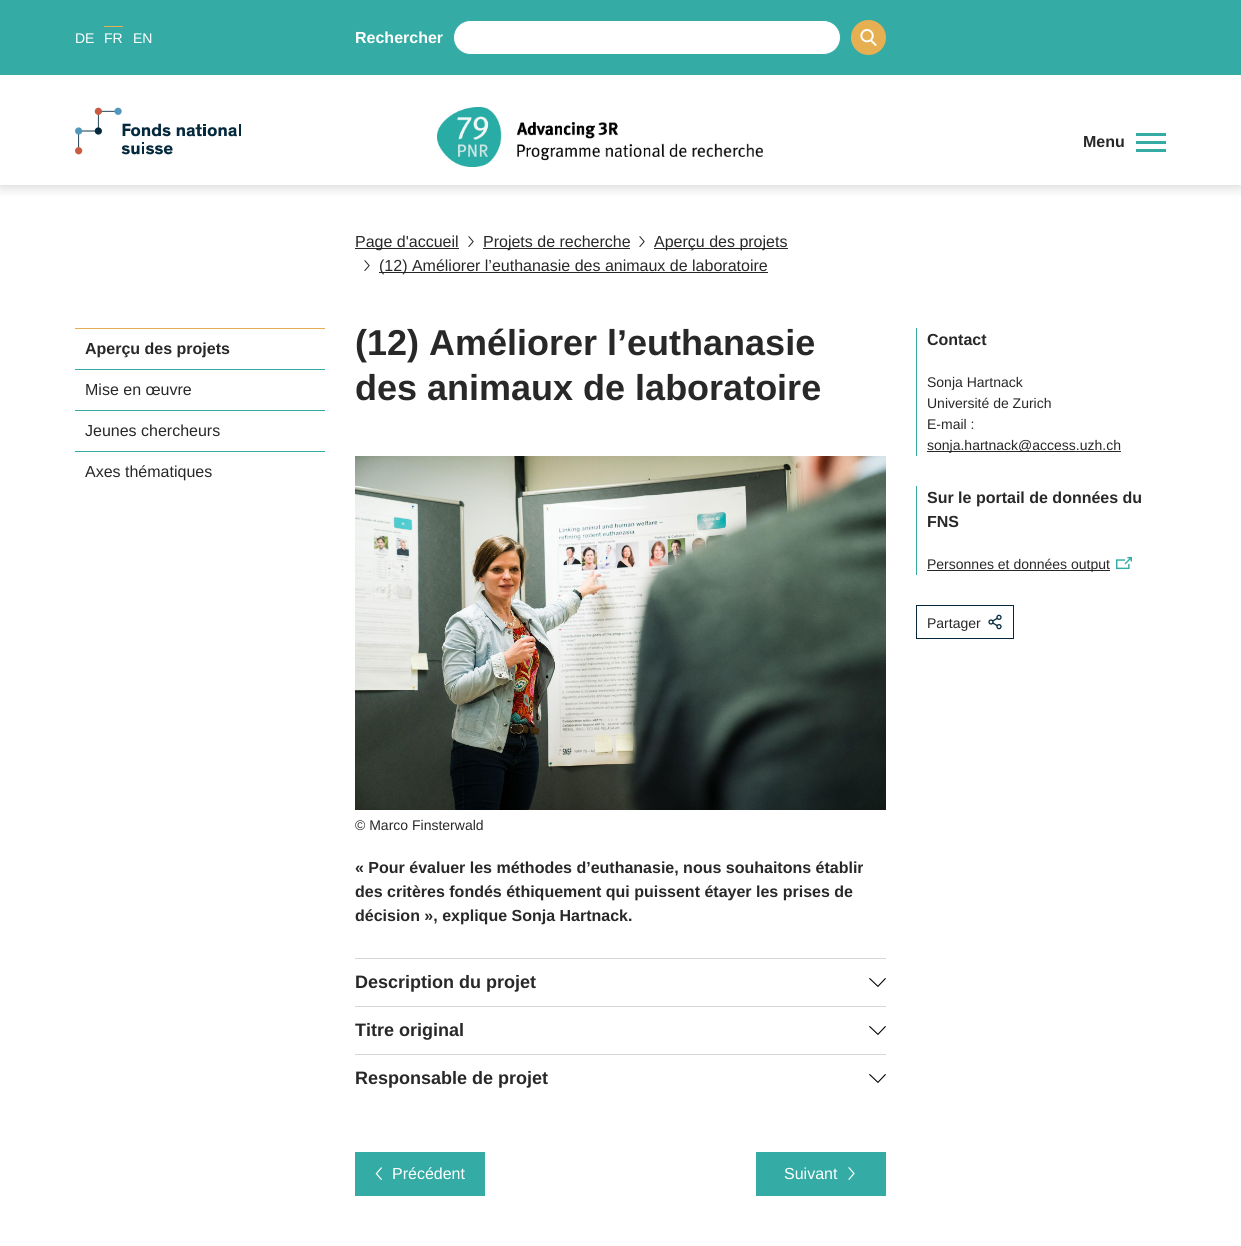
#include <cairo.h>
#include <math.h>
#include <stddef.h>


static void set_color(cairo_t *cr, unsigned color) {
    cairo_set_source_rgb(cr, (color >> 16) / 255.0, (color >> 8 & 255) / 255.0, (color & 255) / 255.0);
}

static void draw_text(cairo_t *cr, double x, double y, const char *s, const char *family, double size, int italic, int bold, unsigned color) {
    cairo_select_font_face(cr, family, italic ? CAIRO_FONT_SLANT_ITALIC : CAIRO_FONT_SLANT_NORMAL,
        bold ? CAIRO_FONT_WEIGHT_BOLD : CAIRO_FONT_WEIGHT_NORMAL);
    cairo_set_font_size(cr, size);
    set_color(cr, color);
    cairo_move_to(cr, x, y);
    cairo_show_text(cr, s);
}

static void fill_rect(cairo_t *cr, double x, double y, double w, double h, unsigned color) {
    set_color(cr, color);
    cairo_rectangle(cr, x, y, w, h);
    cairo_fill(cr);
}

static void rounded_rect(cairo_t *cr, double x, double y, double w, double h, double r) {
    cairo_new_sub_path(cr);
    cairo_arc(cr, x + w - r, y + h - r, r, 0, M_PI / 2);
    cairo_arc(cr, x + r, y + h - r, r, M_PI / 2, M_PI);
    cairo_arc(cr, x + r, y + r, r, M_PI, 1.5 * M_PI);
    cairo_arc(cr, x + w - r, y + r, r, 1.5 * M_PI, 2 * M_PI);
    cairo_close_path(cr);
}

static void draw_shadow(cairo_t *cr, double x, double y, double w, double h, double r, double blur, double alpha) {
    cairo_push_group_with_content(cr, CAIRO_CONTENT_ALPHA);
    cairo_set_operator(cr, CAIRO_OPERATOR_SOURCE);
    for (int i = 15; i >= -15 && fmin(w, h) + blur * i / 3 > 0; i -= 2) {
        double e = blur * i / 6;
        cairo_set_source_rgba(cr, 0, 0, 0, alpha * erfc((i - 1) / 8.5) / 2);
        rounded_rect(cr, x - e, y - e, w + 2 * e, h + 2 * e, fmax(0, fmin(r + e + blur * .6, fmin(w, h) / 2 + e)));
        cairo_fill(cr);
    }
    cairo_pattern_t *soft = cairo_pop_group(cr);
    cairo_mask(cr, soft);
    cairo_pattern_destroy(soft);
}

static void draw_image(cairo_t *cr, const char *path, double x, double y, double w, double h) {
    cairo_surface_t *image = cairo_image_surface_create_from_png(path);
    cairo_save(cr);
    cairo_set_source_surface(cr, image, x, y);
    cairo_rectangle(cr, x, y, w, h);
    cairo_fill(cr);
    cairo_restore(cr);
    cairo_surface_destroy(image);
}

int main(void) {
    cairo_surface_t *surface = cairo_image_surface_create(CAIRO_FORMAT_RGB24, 1241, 1246);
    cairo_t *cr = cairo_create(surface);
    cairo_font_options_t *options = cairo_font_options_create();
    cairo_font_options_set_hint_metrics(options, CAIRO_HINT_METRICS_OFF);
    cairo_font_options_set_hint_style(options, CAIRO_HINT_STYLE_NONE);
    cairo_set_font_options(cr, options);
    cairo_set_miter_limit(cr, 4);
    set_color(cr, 0xFFFFFF);
    cairo_paint(cr);
    cairo_save(cr);
    cairo_rectangle(cr, 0, 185, 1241, 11);
    cairo_clip(cr);
    set_color(cr, 0x282828);
    draw_shadow(cr, 0, 0, 1241, 185, 0, 7.5, 0.25);
    cairo_restore(cr);
    fill_rect(cr, 0, 0, 1241, 75, 0x34ACA5);
    draw_text(cr, 75, 43, "DE", "Liberation Sans", 14, 0, 0, 0xFFFFFF);
    fill_rect(cr, 104, 26, 19, 1, 0xE6AF52);
    draw_text(cr, 104, 43, "FR", "Liberation Sans", 14, 0, 0, 0xFFFFFF);
    draw_text(cr, 133, 43, "EN", "Liberation Sans", 14, 0, 0, 0xFFFFFF);
    draw_text(cr, 355, 43, "Rechercher", "Liberation Sans", 16, 0, 1, 0xFFFFFF);
    rounded_rect(cr, 453.5, 20.5, 387, 34, 17);
    cairo_fill_preserve(cr);
    set_color(cr, 0x34ACA5);
    cairo_set_line_width(cr, 1);
    cairo_stroke(cr);
    set_color(cr, 0xE6AF52);
    cairo_arc(cr, 868.5, 37.5, 17.5, 0, 2 * M_PI);
    cairo_fill(cr);
    draw_image(cr, "assets/img1.png", 860, 29, 17, 17);
    draw_image(cr, "assets/img2.png", 75, 107, 166, 48);
    draw_image(cr, "assets/img3.png", 437, 107, 326, 60);
    draw_text(cr, 1083, 147, "Menu", "Liberation Sans", 16, 0, 1, 0x282828);
    fill_rect(cr, 1136, 141, 30, 3, 0x34ACA5);
    fill_rect(cr, 1136, 133, 30, 3, 0x34ACA5);
    fill_rect(cr, 1136, 149, 30, 3, 0x34ACA5);
    fill_rect(cr, 355, 248, 104, 1, 0x282828);
    draw_text(cr, 355, 247, "Page d'accueil", "Liberation Sans", 16, 0, 0, 0x282828);
    draw_image(cr, "assets/img4.png", 468, 236, 6, 11);
    fill_rect(cr, 483, 248, 147, 1, 0x282828);
    draw_text(cr, 483, 247, "Projets de recherche", "Liberation Sans", 16, 0, 0, 0x282828);
    draw_image(cr, "assets/img4.png", 639, 236, 6, 11);
    fill_rect(cr, 654, 248, 134, 1, 0x282828);
    draw_text(cr, 654, 247, "Aperçu des projets", "Liberation Sans", 16, 0, 0, 0x282828);
    draw_image(cr, "assets/img4.png", 364, 260, 6, 11);
    fill_rect(cr, 379, 272, 389, 1, 0x282828);
    draw_text(cr, 379, 271, "(12) Améliorer l’euthanasie des animaux de laboratoire", "Liberation Sans", 16, 0, 0, 0x282828);
    fill_rect(cr, 75, 328, 250, 1, 0xE6AF52);
    draw_text(cr, 85, 354, "Aperçu des projets", "Liberation Sans", 16, 0, 1, 0x282828);
    fill_rect(cr, 75, 369, 250, 1, 0x34ACA5);
    draw_text(cr, 85, 395, "Mise en œuvre", "Liberation Sans", 16, 0, 0, 0x282828);
    fill_rect(cr, 75, 410, 250, 1, 0x34ACA5);
    draw_text(cr, 85, 436, "Jeunes chercheurs", "Liberation Sans", 16, 0, 0, 0x282828);
    fill_rect(cr, 75, 451, 250, 1, 0x34ACA5);
    draw_text(cr, 85, 477, "Axes thématiques", "Liberation Sans", 16, 0, 0, 0x282828);
    draw_text(cr, 355, 355, "(12) Améliorer l’euthanasie", "Liberation Sans", 36, 0, 1, 0x282828);
    draw_text(cr, 355, 400, "des animaux de laboratoire", "Liberation Sans", 36, 0, 1, 0x282828);
    draw_image(cr, "assets/img5.png", 355, 456, 531, 354);
    draw_text(cr, 355, 830, "© Marco Finsterwald", "Liberation Sans", 14, 0, 0, 0x282828);
    draw_text(cr, 355, 873, "« Pour évaluer les méthodes d’euthanasie, nous souhaitons établir", "Liberation Sans", 16, 0, 1, 0x282828);
    draw_text(cr, 355, 897, "des critères fondés éthiquement qui puissent étayer les prises de", "Liberation Sans", 16, 0, 1, 0x282828);
    draw_text(cr, 355, 921, "décision », explique Sonja Hartnack.", "Liberation Sans", 16, 0, 1, 0x282828);
    fill_rect(cr, 355, 958, 531, 1, 0xD7D7D7);
    draw_text(cr, 355, 988, "Description du projet", "Liberation Sans", 18, 0, 1, 0x282828);
    draw_image(cr, "assets/img6.png", 869, 978, 17, 9);
    fill_rect(cr, 355, 1006, 531, 1, 0xD7D7D7);
    draw_text(cr, 355, 1036, "Titre original", "Liberation Sans", 18, 0, 1, 0x282828);
    draw_image(cr, "assets/img6.png", 869, 1026, 17, 9);
    fill_rect(cr, 355, 1054, 531, 1, 0xD7D7D7);
    draw_text(cr, 355, 1084, "Responsable de projet", "Liberation Sans", 18, 0, 1, 0x282828);
    draw_image(cr, "assets/img6.png", 869, 1074, 17, 9);
    fill_rect(cr, 355, 1152, 130, 44, 0x34ACA5);
    draw_image(cr, "assets/img7.png", 375, 1167, 7, 13);
    draw_text(cr, 392, 1179, "Précédent", "Liberation Sans", 16, 0, 0, 0xFFFFFF);
    fill_rect(cr, 756, 1152, 130, 44, 0x34ACA5);
    draw_text(cr, 784, 1179, "Suivant", "Liberation Sans", 16, 0, 0, 0xFFFFFF);
    draw_image(cr, "assets/img8.png", 848, 1167, 7, 13);
    fill_rect(cr, 916, 328, 1, 128, 0x34ACA5);
    draw_text(cr, 927, 345, "Contact", "Liberation Sans", 16, 0, 1, 0x282828);
    draw_text(cr, 927, 387, "Sonja Hartnack", "Liberation Sans", 14, 0, 0, 0x282828);
    draw_text(cr, 927, 408, "Université de Zurich", "Liberation Sans", 14, 0, 0, 0x282828);
    draw_text(cr, 927, 429, "E-mail :", "Liberation Sans", 14, 0, 0, 0x282828);
    fill_rect(cr, 927, 451, 194, 1, 0x282828);
    draw_text(cr, 927, 450, "sonja.hartnack@access.uzh.ch", "Liberation Sans", 14, 0, 0, 0x282828);
    fill_rect(cr, 916, 486, 1, 89, 0x34ACA5);
    draw_text(cr, 927, 503, "Sur le portail de données du", "Liberation Sans", 16, 0, 1, 0x282828);
    draw_text(cr, 927, 527, "FNS", "Liberation Sans", 16, 0, 1, 0x282828);
    fill_rect(cr, 927, 570, 183, 1, 0x282828);
    draw_text(cr, 927, 569, "Personnes et données output", "Liberation Sans", 14, 0, 0, 0x282828);
    draw_image(cr, "assets/img9.png", 1116, 556, 16, 14);
    cairo_rectangle(cr, 916.5, 605.5, 97, 33);
    set_color(cr, 0x04293C);
    cairo_stroke(cr);
    draw_text(cr, 927, 628, "Partager", "Liberation Sans", 14, 0, 0, 0x282828);
    draw_image(cr, "assets/img10.png", 988, 614, 14, 16);
    cairo_surface_write_to_png(surface, "output.png");
    cairo_font_options_destroy(options);
    cairo_destroy(cr);
    cairo_surface_destroy(surface);
    return 0;
}
